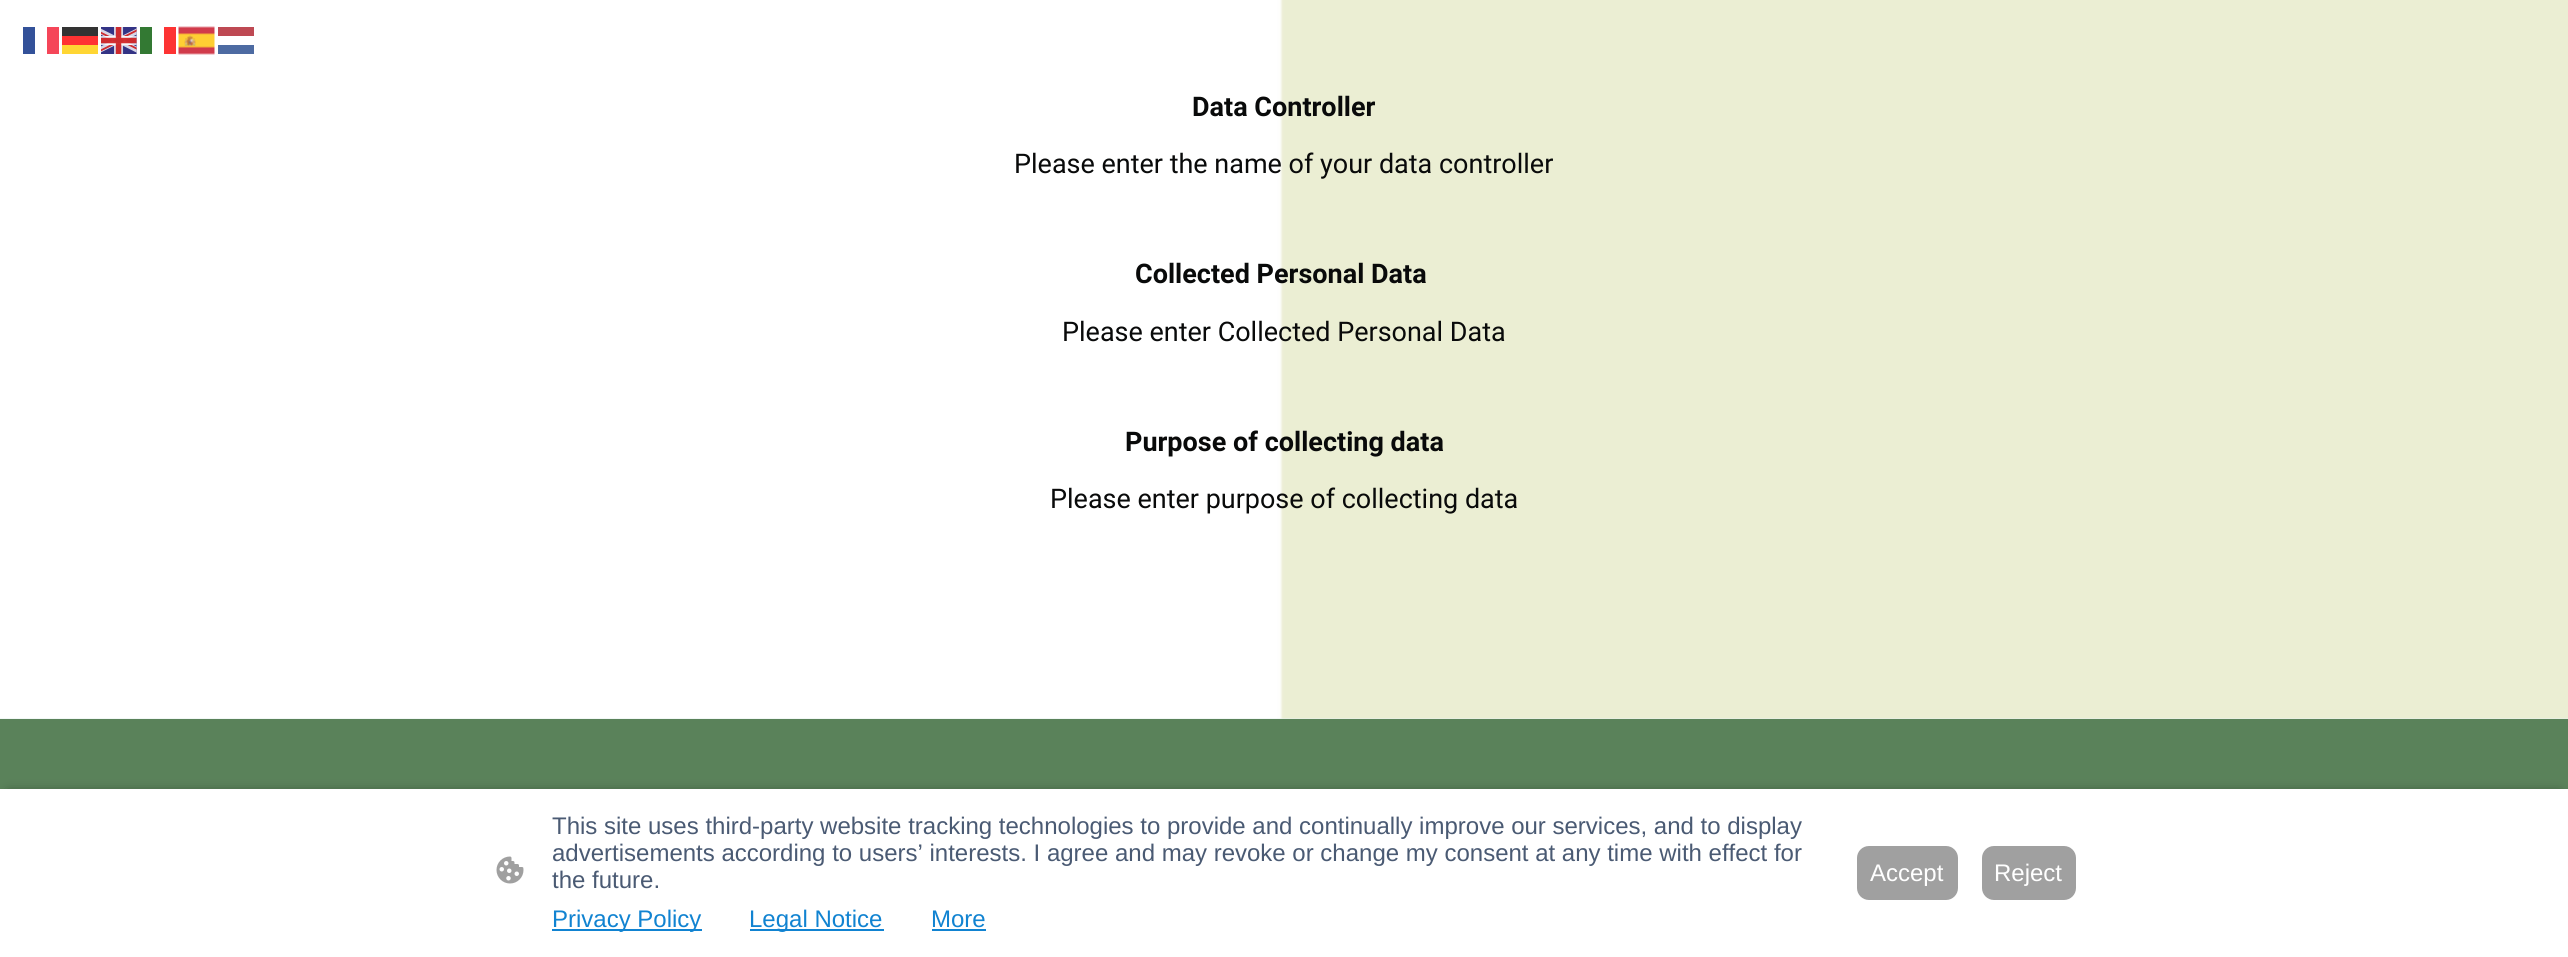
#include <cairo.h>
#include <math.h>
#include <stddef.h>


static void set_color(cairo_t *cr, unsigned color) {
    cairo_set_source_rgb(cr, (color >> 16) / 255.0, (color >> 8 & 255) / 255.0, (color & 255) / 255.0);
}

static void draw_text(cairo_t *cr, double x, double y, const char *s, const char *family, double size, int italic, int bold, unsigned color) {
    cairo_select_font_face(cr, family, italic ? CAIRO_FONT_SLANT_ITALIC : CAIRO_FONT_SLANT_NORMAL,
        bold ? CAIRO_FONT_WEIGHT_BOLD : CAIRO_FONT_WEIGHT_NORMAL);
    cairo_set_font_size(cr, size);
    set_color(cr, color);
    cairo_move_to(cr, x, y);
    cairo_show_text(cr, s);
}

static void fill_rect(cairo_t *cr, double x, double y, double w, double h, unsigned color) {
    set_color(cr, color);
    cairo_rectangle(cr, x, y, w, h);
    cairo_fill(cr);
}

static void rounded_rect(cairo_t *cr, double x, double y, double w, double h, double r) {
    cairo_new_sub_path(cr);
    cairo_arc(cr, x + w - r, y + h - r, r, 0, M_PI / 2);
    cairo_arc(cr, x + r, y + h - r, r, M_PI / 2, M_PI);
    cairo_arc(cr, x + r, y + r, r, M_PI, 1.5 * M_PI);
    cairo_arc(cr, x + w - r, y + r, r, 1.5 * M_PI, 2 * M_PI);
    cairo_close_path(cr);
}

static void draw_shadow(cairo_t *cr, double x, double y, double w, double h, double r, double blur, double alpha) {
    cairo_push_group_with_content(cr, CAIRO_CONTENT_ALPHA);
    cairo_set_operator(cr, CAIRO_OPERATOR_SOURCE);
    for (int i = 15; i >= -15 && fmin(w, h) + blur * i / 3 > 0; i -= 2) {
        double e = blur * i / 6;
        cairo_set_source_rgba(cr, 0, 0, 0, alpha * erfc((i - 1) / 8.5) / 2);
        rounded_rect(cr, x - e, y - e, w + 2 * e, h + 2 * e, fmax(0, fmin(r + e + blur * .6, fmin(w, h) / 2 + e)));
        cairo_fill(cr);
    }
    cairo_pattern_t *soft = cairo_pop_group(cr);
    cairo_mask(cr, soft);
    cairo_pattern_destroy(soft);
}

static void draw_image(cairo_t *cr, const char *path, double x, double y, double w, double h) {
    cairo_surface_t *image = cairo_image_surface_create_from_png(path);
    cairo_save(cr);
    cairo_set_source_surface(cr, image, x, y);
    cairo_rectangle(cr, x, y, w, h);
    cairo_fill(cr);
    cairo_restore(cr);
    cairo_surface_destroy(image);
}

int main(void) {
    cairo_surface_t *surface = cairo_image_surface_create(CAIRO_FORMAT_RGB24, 2568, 957);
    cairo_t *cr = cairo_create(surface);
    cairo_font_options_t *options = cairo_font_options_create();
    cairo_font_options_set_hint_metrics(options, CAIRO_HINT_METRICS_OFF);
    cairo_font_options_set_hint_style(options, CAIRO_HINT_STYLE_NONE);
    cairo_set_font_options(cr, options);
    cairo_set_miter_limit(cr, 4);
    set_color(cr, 0xE4F0ED);
    cairo_paint(cr);
    draw_image(cr, "assets/img3.png", 0, 0, 2568, 719);
    fill_rect(cr, 23, 27, 12, 27, 0x335199);
    fill_rect(cr, 47, 27, 12, 27, 0xF54659);
    fill_rect(cr, 62, 27, 36, 9, 0x333333);
    draw_image(cr, "assets/img1.png", 101, 27, 36, 27);
    fill_rect(cr, 140, 27, 12, 27, 0x337933);
    fill_rect(cr, 164, 27, 12, 27, 0xFD3333);
    draw_image(cr, "assets/img2.png", 178, 26, 37, 29);
    fill_rect(cr, 218, 27, 36, 9, 0xBE4953);
    fill_rect(cr, 62, 36, 36, 9, 0xFF3333);
    fill_rect(cr, 62, 45, 36, 9, 0xFFD633);
    fill_rect(cr, 218, 45, 36, 9, 0x4D6BA2);
    draw_text(cr, 1192, 116, "Data Controller", "Roboto", 27, 0, 1, 0x090A0A);
    draw_text(cr, 1014, 173, "Please enter the name of your data controller", "Roboto", 27, 0, 0, 0x090A0A);
    draw_text(cr, 1135, 283, "Collected Personal Data", "Roboto", 27, 0, 1, 0x090A0A);
    draw_text(cr, 1062, 341, "Please enter Collected Personal Data", "Roboto", 27, 0, 0, 0x090A0A);
    draw_text(cr, 1125, 451, "Purpose of collecting data", "Roboto", 27, 0, 1, 0x090A0A);
    draw_text(cr, 1050, 508, "Please enter purpose of collecting data", "Roboto", 27, 0, 0, 0x090A0A);
    fill_rect(cr, 0, 719, 2568, 70, 0x5A825A);
    set_color(cr, 0x000000);
    draw_shadow(cr, 9, 794, 2550, 150, 0, 6, 0.63);
    fill_rect(cr, 0, 789, 2568, 168, 0xFFFFFF);
    draw_image(cr, "assets/img4.png", 496, 856, 28, 28);
    draw_text(cr, 552, 834, "This site uses third-party website tracking technologies to provide and continually improve our services, and to display", "Liberation Sans", 24, 0, 0, 0x4A5A73);
    draw_text(cr, 552, 861, "advertisements according to users’ interests. I agree and may revoke or change my consent at any time with effect for", "Liberation Sans", 24, 0, 0, 0x4A5A73);
    draw_text(cr, 552, 888, "the future.", "Liberation Sans", 24, 0, 0, 0x4A5A73);
    fill_rect(cr, 552, 929, 150, 2, 0x1183D1);
    draw_text(cr, 552, 927, "Privacy Policy", "Liberation Sans", 24, 0, 0, 0x1183D1);
    fill_rect(cr, 750, 929, 134, 2, 0x1183D1);
    draw_text(cr, 749, 927, "Legal Notice", "Liberation Sans", 24, 0, 0, 0x1183D1);
    draw_text(cr, 931, 927, "More", "Liberation Sans", 24, 0, 0, 0x1183D1);
    fill_rect(cr, 932, 929, 54, 2, 0x1183D1);
    set_color(cr, 0xA0A0A0);
    rounded_rect(cr, 1858, 847, 99, 52, 11);
    cairo_fill_preserve(cr);
    cairo_stroke(cr);
    draw_text(cr, 1870, 881, "Accept", "Liberation Sans", 24, 0, 0, 0xFFFFFF);
    set_color(cr, 0xA0A0A0);
    rounded_rect(cr, 1983, 847, 92, 52, 11);
    cairo_fill_preserve(cr);
    cairo_stroke(cr);
    draw_text(cr, 1994, 881, "Reject", "Liberation Sans", 24, 0, 0, 0xFFFFFF);
    cairo_surface_write_to_png(surface, "output.png");
    cairo_font_options_destroy(options);
    cairo_destroy(cr);
    cairo_surface_destroy(surface);
    return 0;
}
